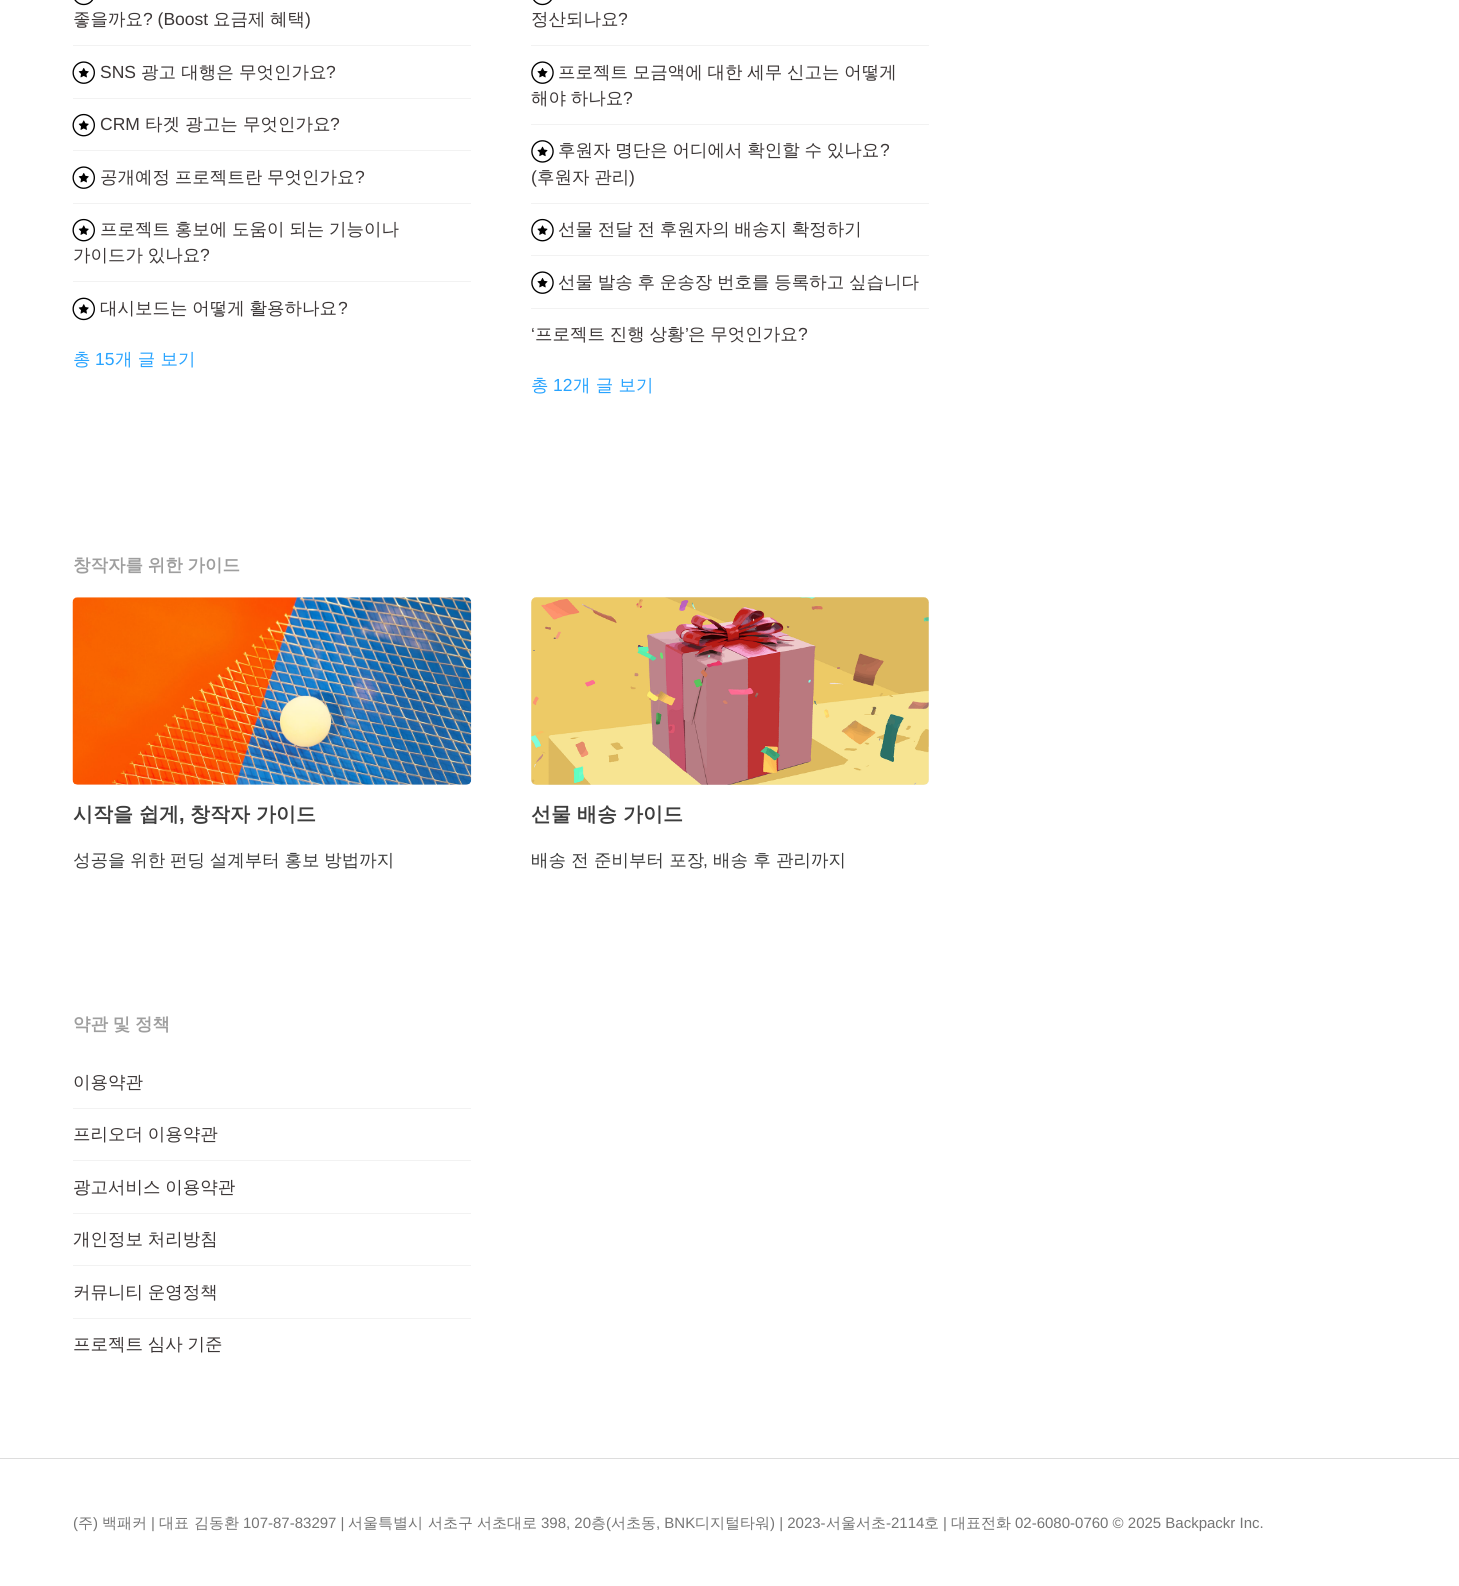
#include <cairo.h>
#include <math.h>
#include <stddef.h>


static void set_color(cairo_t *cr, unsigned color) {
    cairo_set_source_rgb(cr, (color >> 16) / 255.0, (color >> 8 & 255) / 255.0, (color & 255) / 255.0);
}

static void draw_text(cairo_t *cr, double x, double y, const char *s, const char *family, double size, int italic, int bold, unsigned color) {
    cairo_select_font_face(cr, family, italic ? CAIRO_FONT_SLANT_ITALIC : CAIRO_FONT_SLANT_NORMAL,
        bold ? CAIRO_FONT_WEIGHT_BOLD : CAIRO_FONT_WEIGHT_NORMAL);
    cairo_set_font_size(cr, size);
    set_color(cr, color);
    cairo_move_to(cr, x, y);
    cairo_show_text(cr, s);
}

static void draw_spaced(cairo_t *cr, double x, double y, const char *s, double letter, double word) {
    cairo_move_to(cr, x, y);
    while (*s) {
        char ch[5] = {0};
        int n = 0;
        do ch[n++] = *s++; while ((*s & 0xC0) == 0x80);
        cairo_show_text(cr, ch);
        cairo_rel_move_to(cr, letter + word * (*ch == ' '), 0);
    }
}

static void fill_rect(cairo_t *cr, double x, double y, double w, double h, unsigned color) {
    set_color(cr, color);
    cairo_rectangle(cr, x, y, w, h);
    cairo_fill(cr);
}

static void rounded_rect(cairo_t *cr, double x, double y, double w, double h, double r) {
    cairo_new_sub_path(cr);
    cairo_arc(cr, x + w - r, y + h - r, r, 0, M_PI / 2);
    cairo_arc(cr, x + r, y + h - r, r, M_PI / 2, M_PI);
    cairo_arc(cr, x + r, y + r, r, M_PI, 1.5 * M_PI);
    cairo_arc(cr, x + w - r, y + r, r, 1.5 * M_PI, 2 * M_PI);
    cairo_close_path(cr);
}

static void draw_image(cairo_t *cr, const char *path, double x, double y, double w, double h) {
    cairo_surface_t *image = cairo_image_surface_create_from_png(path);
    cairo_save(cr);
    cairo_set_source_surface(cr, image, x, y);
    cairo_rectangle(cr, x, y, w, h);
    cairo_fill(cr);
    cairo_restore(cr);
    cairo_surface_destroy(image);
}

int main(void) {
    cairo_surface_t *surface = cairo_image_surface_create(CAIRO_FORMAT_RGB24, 1459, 1586);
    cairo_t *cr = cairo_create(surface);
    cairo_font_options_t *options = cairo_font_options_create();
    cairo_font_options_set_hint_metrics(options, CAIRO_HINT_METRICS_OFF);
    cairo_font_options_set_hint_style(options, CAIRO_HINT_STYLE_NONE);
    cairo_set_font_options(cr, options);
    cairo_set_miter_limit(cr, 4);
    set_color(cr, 0xFFFFFF);
    cairo_paint(cr);
    fill_rect(cr, 73, 45, 398, 1, 0xF2F2F2);
    draw_image(cr, "assets/img1.png", 74, 0, 20, 6);
    draw_text(cr, 73, 25, "좋을까요", "WenQuanYi Zen Hei Medium", 17.5, 0, 0, 0x3C3737);
    draw_text(cr, 143, 25, "? (Boost", "Liberation Sans", 17.5, 0, 0, 0x3C3737);
    draw_text(cr, 213, 25, "요금제", "WenQuanYi Zen Hei Medium", 17.5, 0, 0, 0x3C3737);
    draw_text(cr, 270, 25, "혜택", "WenQuanYi Zen Hei Medium", 17.5, 0, 0, 0x3C3737);
    draw_text(cr, 305, 25, ")", "Liberation Sans", 17.5, 0, 0, 0x3C3737);
    fill_rect(cr, 73, 98, 398, 1, 0xF2F2F2);
    draw_image(cr, "assets/img2.png", 72, 61, 23, 23);
    draw_text(cr, 100, 78, "SNS", "Liberation Sans", 17.5, 0, 0, 0x3C3737);
    draw_text(cr, 141, 78, "광고 대행은 무엇인가요", "WenQuanYi Zen Hei Medium", 17.5, 0, 0, 0x3C3737);
    draw_text(cr, 326, 78, "?", "Liberation Sans", 17.5, 0, 0, 0x3C3737);
    fill_rect(cr, 73, 150, 398, 1, 0xF2F2F2);
    draw_image(cr, "assets/img3.png", 72, 113, 23, 24);
    draw_text(cr, 100, 130, "CRM", "Liberation Sans", 17.5, 0, 0, 0x3C3737);
    draw_text(cr, 145, 130, "타겟 광고는 무엇인가요", "WenQuanYi Zen Hei Medium", 17.5, 0, 0, 0x3C3737);
    draw_text(cr, 330, 130, "?", "Liberation Sans", 17.5, 0, 0, 0x3C3737);
    fill_rect(cr, 73, 203, 398, 1, 0xF2F2F2);
    draw_image(cr, "assets/img2.png", 72, 166, 23, 23);
    cairo_select_font_face(cr, "WenQuanYi Zen Hei Medium", CAIRO_FONT_SLANT_NORMAL, CAIRO_FONT_WEIGHT_NORMAL);
    set_color(cr, 0x3C3737);
    draw_spaced(cr, 100, 183, "공개예정 프로젝트란 무엇인가요", 0, -0.5);
    draw_text(cr, 355, 183, "?", "Liberation Sans", 17.5, 0, 0, 0x3C3737);
    fill_rect(cr, 73, 281, 398, 1, 0xF2F2F2);
    draw_image(cr, "assets/img3.png", 72, 218, 23, 24);
    cairo_select_font_face(cr, "WenQuanYi Zen Hei Medium", CAIRO_FONT_SLANT_NORMAL, CAIRO_FONT_WEIGHT_NORMAL);
    set_color(cr, 0x3C3737);
    draw_spaced(cr, 100, 235, "프로젝트 홍보에 도움이 되는 기능이나", 0, -0.5);
    draw_spaced(cr, 73, 261, "가이드가 있나요", 0, -0.5);
    draw_text(cr, 200, 261, "?", "Liberation Sans", 17.5, 0, 0, 0x3C3737);
    draw_image(cr, "assets/img4.png", 72, 297, 23, 24);
    cairo_select_font_face(cr, "WenQuanYi Zen Hei Medium", CAIRO_FONT_SLANT_NORMAL, CAIRO_FONT_WEIGHT_NORMAL);
    draw_spaced(cr, 100, 314, "대시보드는 어떻게 활용하나요", 0, -0.5);
    draw_text(cr, 338, 314, "?", "Liberation Sans", 17.5, 0, 0, 0x3C3737);
    draw_text(cr, 73, 365, "총", "WenQuanYi Zen Hei Medium", 17.5, 0, 0, 0x27A3FF);
    draw_text(cr, 95, 365, "15", "Liberation Sans", 17.5, 0, 0, 0x27A3FF);
    draw_text(cr, 115, 365, "개 글 보기", "WenQuanYi Zen Hei Medium", 17.5, 0, 0, 0x27A3FF);
    fill_rect(cr, 531, 45, 398, 1, 0xF2F2F2);
    draw_image(cr, "assets/img5.png", 533, 0, 19, 6);
    draw_text(cr, 531, 25, "정산되나요", "WenQuanYi Zen Hei Medium", 17.5, 0, 0, 0x3C3737);
    draw_text(cr, 618, 25, "?", "Liberation Sans", 17.5, 0, 0, 0x3C3737);
    fill_rect(cr, 531, 124, 398, 1, 0xF2F2F2);
    draw_image(cr, "assets/img6.png", 531, 61, 23, 23);
    cairo_select_font_face(cr, "WenQuanYi Zen Hei Medium", CAIRO_FONT_SLANT_NORMAL, CAIRO_FONT_WEIGHT_NORMAL);
    set_color(cr, 0x3C3737);
    draw_spaced(cr, 558, 78, "프로젝트 모금액에 대한 세무 신고는 어떻게", 0, -0.5);
    draw_spaced(cr, 531, 104, "해야 하나요", 0, -0.5);
    draw_text(cr, 623, 104, "?", "Liberation Sans", 17.5, 0, 0, 0x3C3737);
    fill_rect(cr, 531, 203, 398, 1, 0xF2F2F2);
    draw_image(cr, "assets/img7.png", 531, 140, 23, 23);
    cairo_select_font_face(cr, "WenQuanYi Zen Hei Medium", CAIRO_FONT_SLANT_NORMAL, CAIRO_FONT_WEIGHT_NORMAL);
    set_color(cr, 0x3C3737);
    draw_spaced(cr, 558, 156, "후원자 명단은 어디에서 확인할 수 있나요", 0, -0.5);
    draw_text(cr, 880, 156, "?", "Liberation Sans", 17.5, 0, 0, 0x3C3737);
    draw_text(cr, 531, 183, "(", "Liberation Sans", 17.5, 0, 0, 0x3C3737);
    cairo_select_font_face(cr, "WenQuanYi Zen Hei Medium", CAIRO_FONT_SLANT_NORMAL, CAIRO_FONT_WEIGHT_NORMAL);
    draw_spaced(cr, 537, 183, "후원자 관리", 0, -0.5);
    draw_text(cr, 629, 183, ")", "Liberation Sans", 17.5, 0, 0, 0x3C3737);
    fill_rect(cr, 531, 255, 398, 1, 0xF2F2F2);
    draw_image(cr, "assets/img8.png", 531, 218, 23, 24);
    cairo_select_font_face(cr, "WenQuanYi Zen Hei Medium", CAIRO_FONT_SLANT_NORMAL, CAIRO_FONT_WEIGHT_NORMAL);
    set_color(cr, 0x3C3737);
    draw_spaced(cr, 558, 235, "선물 전달 전 후원자의 배송지 확정하기", 0, -0.5);
    fill_rect(cr, 531, 308, 398, 1, 0xF2F2F2);
    draw_image(cr, "assets/img6.png", 531, 271, 23, 23);
    set_color(cr, 0x3C3737);
    draw_spaced(cr, 558, 288, "선물 발송 후 운송장 번호를 등록하고 싶습니다", 0, -0.5);
    draw_text(cr, 531, 340, "‘", "Liberation Sans", 17.5, 0, 0, 0x3C3737);
    cairo_select_font_face(cr, "WenQuanYi Zen Hei Medium", CAIRO_FONT_SLANT_NORMAL, CAIRO_FONT_WEIGHT_NORMAL);
    draw_spaced(cr, 535, 340, "프로젝트 진행 상황", 0, -0.5);
    draw_text(cr, 685, 340, "’", "Liberation Sans", 17.5, 0, 0, 0x3C3737);
    cairo_select_font_face(cr, "WenQuanYi Zen Hei Medium", CAIRO_FONT_SLANT_NORMAL, CAIRO_FONT_WEIGHT_NORMAL);
    draw_spaced(cr, 688, 340, "은 무엇인가요", 0, -0.5);
    draw_text(cr, 798, 340, "?", "Liberation Sans", 17.5, 0, 0, 0x3C3737);
    draw_text(cr, 531, 391, "총", "WenQuanYi Zen Hei Medium", 17.5, 0, 0, 0x27A3FF);
    draw_text(cr, 553, 391, "12", "Liberation Sans", 17.5, 0, 0, 0x27A3FF);
    draw_text(cr, 573, 391, "개 글 보기", "WenQuanYi Zen Hei Medium", 17.5, 0, 0, 0x27A3FF);
    cairo_select_font_face(cr, "WenQuanYi Zen Hei", CAIRO_FONT_SLANT_NORMAL, CAIRO_FONT_WEIGHT_BOLD);
    set_color(cr, 0x9E9E9E);
    draw_spaced(cr, 73, 571, "창작자를 위한 가이드", 0, -0.5);
    set_color(cr, 0xF2F2F2);
    rounded_rect(cr, 73, 598, 398, 187, 5);
    cairo_fill(cr);
    draw_image(cr, "assets/img9.png", 72, 597, 400, 188);
    draw_text(cr, 73, 821, "시작을 쉽게", "WenQuanYi Zen Hei", 20, 0, 1, 0x3D3D3D);
    draw_text(cr, 179, 821, ",", "Liberation Sans", 20, 0, 1, 0x3D3D3D);
    draw_text(cr, 190, 821, "창작자 가이드", "WenQuanYi Zen Hei", 20, 0, 1, 0x3D3D3D);
    cairo_select_font_face(cr, "WenQuanYi Zen Hei Medium", CAIRO_FONT_SLANT_NORMAL, CAIRO_FONT_WEIGHT_NORMAL);
    cairo_set_font_size(cr, 17.5);
    draw_spaced(cr, 73, 866, "성공을 위한 펀딩 설계부터 홍보 방법까지", 0, -0.5);
    set_color(cr, 0xF2F2F2);
    rounded_rect(cr, 531, 598, 398, 187, 5);
    cairo_fill(cr);
    draw_image(cr, "assets/img10.png", 531, 597, 398, 188);
    draw_text(cr, 531, 821, "선물 배송 가이드", "WenQuanYi Zen Hei", 20, 0, 1, 0x3D3D3D);
    draw_text(cr, 531, 866, "배송 전 준비부터 포장", "WenQuanYi Zen Hei Medium", 17.5, 0, 0, 0x3D3D3D);
    draw_text(cr, 703, 866, ",", "Liberation Sans", 17.5, 0, 0, 0x3D3D3D);
    draw_text(cr, 713, 866, "배송 후 관리까지", "WenQuanYi Zen Hei Medium", 17.5, 0, 0, 0x3D3D3D);
    cairo_select_font_face(cr, "WenQuanYi Zen Hei", CAIRO_FONT_SLANT_NORMAL, CAIRO_FONT_WEIGHT_BOLD);
    set_color(cr, 0x9E9E9E);
    draw_spaced(cr, 73, 1030, "약관 및 정책", 0, -0.5);
    fill_rect(cr, 73, 1108, 398, 1, 0xF2F2F2);
    draw_text(cr, 73, 1088, "이용약관", "WenQuanYi Zen Hei Medium", 17.5, 0, 0, 0x3C3737);
    fill_rect(cr, 73, 1160, 398, 1, 0xF2F2F2);
    set_color(cr, 0x3C3737);
    draw_spaced(cr, 73, 1140, "프리오더 이용약관", 0, -0.5);
    fill_rect(cr, 73, 1213, 398, 1, 0xF2F2F2);
    set_color(cr, 0x3C3737);
    draw_spaced(cr, 73, 1193, "광고서비스 이용약관", 0, -0.5);
    fill_rect(cr, 73, 1265, 398, 1, 0xF2F2F2);
    set_color(cr, 0x3C3737);
    draw_spaced(cr, 73, 1245, "개인정보 처리방침", 0, -0.5);
    fill_rect(cr, 73, 1318, 398, 1, 0xF2F2F2);
    set_color(cr, 0x3C3737);
    draw_spaced(cr, 73, 1298, "커뮤니티 운영정책", 0, -0.5);
    draw_spaced(cr, 73, 1350, "프로젝트 심사 기준", 0, -0.5);
    fill_rect(cr, 0, 1458, 1459, 1, 0xDDDDDD);
    draw_text(cr, 73, 1528, "(", "Liberation Sans", 15, 0, 0, 0x757575);
    draw_text(cr, 78, 1528, "주", "WenQuanYi Zen Hei Medium", 15, 0, 0, 0x757575);
    draw_text(cr, 93, 1528, ")", "Liberation Sans", 15, 0, 0, 0x757575);
    draw_text(cr, 102, 1528, "백패커", "WenQuanYi Zen Hei Medium", 15, 0, 0, 0x757575);
    draw_text(cr, 151, 1528, "|", "Liberation Sans", 15, 0, 0, 0x757575);
    draw_text(cr, 159, 1528, "대표", "WenQuanYi Zen Hei Medium", 15, 0, 0, 0x757575);
    draw_text(cr, 194, 1528, "김동환", "WenQuanYi Zen Hei Medium", 15, 0, 0, 0x757575);
    draw_text(cr, 243, 1528, "107-87-83297 |", "Liberation Sans", 15, 0, 0, 0x757575);
    draw_text(cr, 348, 1528, "서울특별시", "WenQuanYi Zen Hei Medium", 15, 0, 0, 0x757575);
    draw_text(cr, 428, 1528, "서초구", "WenQuanYi Zen Hei Medium", 15, 0, 0, 0x757575);
    draw_text(cr, 477, 1528, "서초대로", "WenQuanYi Zen Hei Medium", 15, 0, 0, 0x757575);
    draw_text(cr, 541, 1528, "398, 20", "Liberation Sans", 15, 0, 0, 0x757575);
    draw_text(cr, 591, 1528, "층", "WenQuanYi Zen Hei Medium", 15, 0, 0, 0x757575);
    draw_text(cr, 606, 1528, "(", "Liberation Sans", 15, 0, 0, 0x757575);
    draw_text(cr, 611, 1528, "서초동", "WenQuanYi Zen Hei Medium", 15, 0, 0, 0x757575);
    draw_text(cr, 656, 1528, ", BNK", "Liberation Sans", 15, 0, 0, 0x757575);
    draw_text(cr, 695, 1528, "디지털타워", "WenQuanYi Zen Hei Medium", 15, 0, 0, 0x757575);
    draw_text(cr, 770, 1528, ") | 2023-", "Liberation Sans", 15, 0, 0, 0x757575);
    draw_text(cr, 826, 1528, "서울서초", "WenQuanYi Zen Hei Medium", 15, 0, 0, 0x757575);
    draw_text(cr, 886, 1528, "-2114", "Liberation Sans", 15, 0, 0, 0x757575);
    draw_text(cr, 924, 1528, "호", "WenQuanYi Zen Hei Medium", 15, 0, 0, 0x757575);
    draw_text(cr, 943, 1528, "|", "Liberation Sans", 15, 0, 0, 0x757575);
    draw_text(cr, 951, 1528, "대표전화", "WenQuanYi Zen Hei Medium", 15, 0, 0, 0x757575);
    draw_text(cr, 1015, 1528, "02-6080-0760 © 2025 Backpackr Inc.", "Liberation Sans", 15, 0, 0, 0x757575);
    cairo_surface_write_to_png(surface, "output.png");
    cairo_font_options_destroy(options);
    cairo_destroy(cr);
    cairo_surface_destroy(surface);
    return 0;
}
